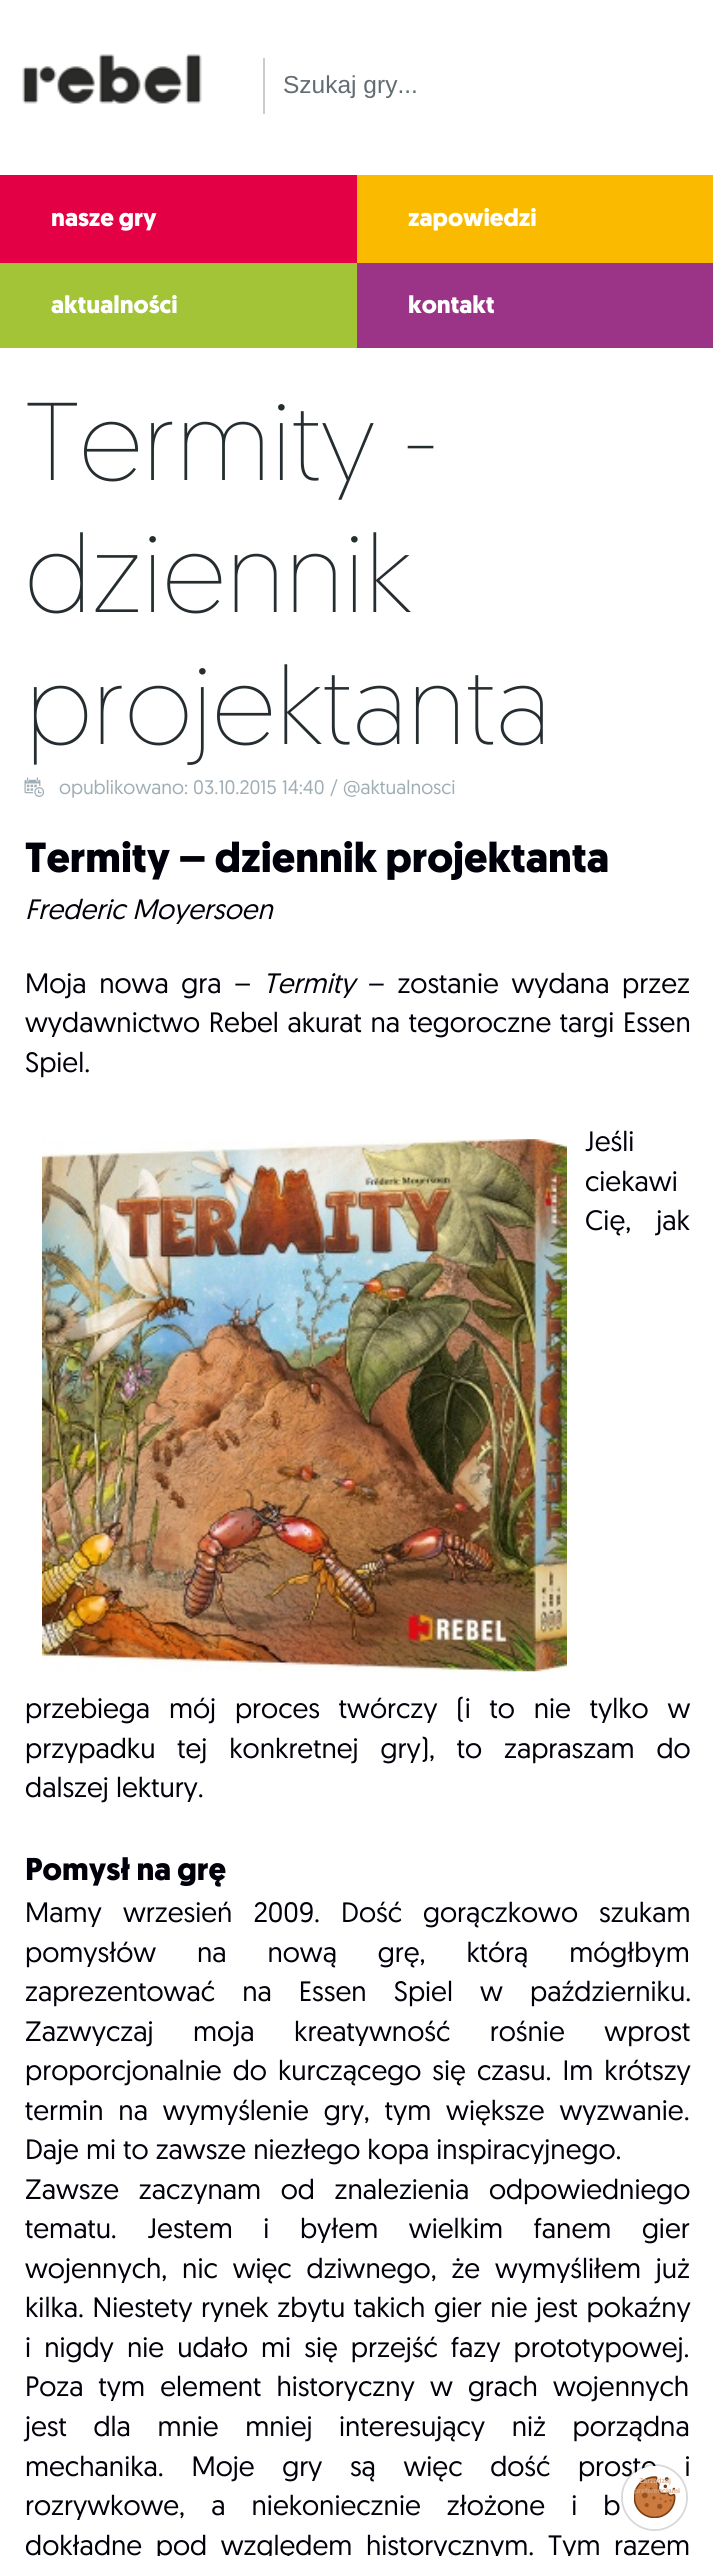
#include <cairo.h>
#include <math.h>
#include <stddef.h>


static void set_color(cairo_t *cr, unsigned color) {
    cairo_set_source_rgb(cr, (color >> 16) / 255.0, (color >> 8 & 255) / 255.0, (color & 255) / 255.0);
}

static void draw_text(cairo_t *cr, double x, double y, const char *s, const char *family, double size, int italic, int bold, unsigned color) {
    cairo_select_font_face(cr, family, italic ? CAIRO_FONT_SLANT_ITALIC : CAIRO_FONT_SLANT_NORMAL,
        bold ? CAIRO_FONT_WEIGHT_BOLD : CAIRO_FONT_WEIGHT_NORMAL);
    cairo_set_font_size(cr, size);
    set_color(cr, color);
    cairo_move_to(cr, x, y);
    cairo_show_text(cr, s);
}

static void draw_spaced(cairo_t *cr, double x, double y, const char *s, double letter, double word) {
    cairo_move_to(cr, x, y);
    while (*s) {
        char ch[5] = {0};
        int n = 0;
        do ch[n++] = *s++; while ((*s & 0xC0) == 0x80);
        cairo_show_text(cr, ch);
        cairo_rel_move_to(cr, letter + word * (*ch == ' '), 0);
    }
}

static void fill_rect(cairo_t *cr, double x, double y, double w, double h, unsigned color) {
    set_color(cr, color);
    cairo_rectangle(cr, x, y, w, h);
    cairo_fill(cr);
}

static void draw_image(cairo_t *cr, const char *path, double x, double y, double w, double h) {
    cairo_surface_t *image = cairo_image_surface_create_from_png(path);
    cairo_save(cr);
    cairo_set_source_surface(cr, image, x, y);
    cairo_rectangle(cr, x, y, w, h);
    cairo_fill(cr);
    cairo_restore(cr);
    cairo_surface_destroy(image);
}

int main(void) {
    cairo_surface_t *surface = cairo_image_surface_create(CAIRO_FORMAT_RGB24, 713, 2556);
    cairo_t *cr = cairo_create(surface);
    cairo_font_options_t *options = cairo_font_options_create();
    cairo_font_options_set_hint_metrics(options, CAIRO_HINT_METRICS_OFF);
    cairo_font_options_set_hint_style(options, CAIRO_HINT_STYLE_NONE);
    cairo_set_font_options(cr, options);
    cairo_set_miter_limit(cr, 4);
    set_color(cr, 0xFFFFFF);
    cairo_paint(cr);
    draw_image(cr, "assets/img1.png", 22, 54, 180, 50);
    fill_rect(cr, 263, 58, 2, 56, 0xCCCCCC);
    draw_text(cr, 283, 93, "Szukaj gry...", "Liberation Sans", 24.5, 0, 0, 0x636C72);
    fill_rect(cr, 0, 175, 357, 88, 0xE30045);
    draw_text(cr, 51, 226, "nasze gry", "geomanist", 24.5, 0, 1, 0xFFFFFF);
    fill_rect(cr, 357, 175, 356, 88, 0xF9BA00);
    draw_text(cr, 408, 226, "zapowiedzi", "geomanist", 24.5, 0, 1, 0xFFFFFF);
    fill_rect(cr, 0, 263, 357, 85, 0xA2C436);
    draw_text(cr, 51, 313, "aktualności", "geomanist", 24.5, 0, 1, 0xFFFFFF);
    fill_rect(cr, 357, 263, 356, 85, 0x9B3487);
    draw_text(cr, 408, 313, "kontakt", "geomanist", 24.5, 0, 1, 0xFFFFFF);
    draw_text(cr, 25, 480, "Termity -", "geomanist ExtraLight", 110.25, 0, 0, 0x252D30);
    draw_text(cr, 25, 612, "dziennik", "geomanist ExtraLight", 110.25, 0, 0, 0x252D30);
    draw_text(cr, 25, 744, "projektanta", "geomanist ExtraLight", 110.25, 0, 0, 0x252D30);
    draw_image(cr, "assets/img2.png", 24, 777, 21, 20);
    draw_text(cr, 59, 794, "opublikowano: 03.10.2015 14:40 / @aktualnosci", "geomanist", 19.6, 0, 0, 0x9FAEB5);
    draw_text(cr, 25, 872, "Termity – dziennik projektanta", "geomanist", 42, 0, 1, 0x00000A);
    draw_text(cr, 25, 919, "Frederic Moyersoen", "geomanist", 28, 1, 0, 0x00000A);
    cairo_select_font_face(cr, "geomanist", CAIRO_FONT_SLANT_NORMAL, CAIRO_FONT_WEIGHT_NORMAL);
    draw_spaced(cr, 25, 993, "Moja nowa gra –", 0, 5.5);
    draw_text(cr, 263, 993, "Termity", "geomanist", 28, 1, 0, 0x00000A);
    cairo_select_font_face(cr, "geomanist", CAIRO_FONT_SLANT_NORMAL, CAIRO_FONT_WEIGHT_NORMAL);
    draw_spaced(cr, 368, 993, "– zostanie wydana przez", 0, 5.5);
    draw_spaced(cr, 25, 1032, "wydawnictwo Rebel akurat na tegoroczne targi Essen", 0, 1.5);
    draw_text(cr, 25, 1072, "Spiel.", "geomanist", 28, 0, 0, 0x00000A);
    draw_image(cr, "assets/img3.png", 42, 1139, 525, 533);
    draw_text(cr, 585, 1151, "Jeśli", "geomanist", 28, 0, 0, 0x00000A);
    draw_text(cr, 585, 1191, "ciekawi", "geomanist", 28, 0, 0, 0x00000A);
    draw_spaced(cr, 585, 1230, "Cię, jak", 0, 18);
    draw_spaced(cr, 25, 1718, "przebiega mój proces twórczy (i to nie tylko w", 0, 11.75);
    draw_spaced(cr, 25, 1758, "przypadku tej konkretnej gry), to zapraszam do", 0, 14.75);
    draw_text(cr, 25, 1797, "dalszej lektury.", "geomanist", 28, 0, 0, 0x00000A);
    draw_text(cr, 25, 1880, "Pomysł na grę", "geomanist", 31.5, 0, 1, 0x00000A);
    cairo_select_font_face(cr, "geomanist", CAIRO_FONT_SLANT_NORMAL, CAIRO_FONT_WEIGHT_NORMAL);
    cairo_set_font_size(cr, 28);
    draw_spaced(cr, 25, 1922, "Mamy wrzesień 2009. Dość gorączkowo szukam", 0, 14);
    draw_spaced(cr, 25, 1962, "pomysłów na nową grę, którą mógłbym", 0, 33.75);
    draw_spaced(cr, 25, 2001, "zaprezentować na Essen Spiel w październiku.", 0, 20);
    draw_spaced(cr, 25, 2041, "Zazwyczaj moja kreatywność rośnie wprost", 0, 32.5);
    draw_spaced(cr, 25, 2080, "proporcjonalnie do kurczącego się czasu. Im krótszy", 0, 4);
    draw_spaced(cr, 25, 2120, "termin na wymyślenie gry, tym większe wyzwanie.", 0, 7.75);
    draw_text(cr, 25, 2159, "Daje mi to zawsze niezłego kopa inspiracyjnego.", "geomanist", 28, 0, 0, 0x00000A);
    draw_spaced(cr, 25, 2199, "Zawsze zaczynam od znalezienia odpowiedniego", 0, 12.5);
    draw_spaced(cr, 25, 2238, "tematu. Jestem i byłem wielkim fanem gier", 0, 23.5);
    draw_spaced(cr, 25, 2278, "wojennych, nic więc dziwnego, że wymyśliłem już", 0, 7.75);
    draw_spaced(cr, 25, 2317, "kilka. Niestety rynek zbytu takich gier nie jest pokaźny", 0, 1.5);
    draw_spaced(cr, 25, 2357, "i nigdy nie udało mi się przejść fazy prototypowej.", 0, 6);
    draw_spaced(cr, 25, 2396, "Poza tym element historyczny w grach wojennych", 0, 8);
    draw_spaced(cr, 25, 2436, "jest dla mnie mniej interesujący niż porządna", 0, 19.5);
    draw_spaced(cr, 25, 2476, "mechanika. Moje gry są więc dość proste i", 0, 20.5);
    draw_spaced(cr, 25, 2515, "rozrywkowe, a niekoniecznie złożone i b", 0, 19);
    draw_spaced(cr, 25, 2555, "dokładne pod względem historycznym. Tym razem", 0, 6.5);
    cairo_new_path(cr);
    cairo_arc(cr, 654.5, 2497.5, 32.5, 0, 2 * M_PI);
    cairo_set_source_rgba(cr, 0, 0, 0, 0.15);
    cairo_stroke(cr);
    set_color(cr, 0xFFFFFF);
    cairo_arc(cr, 654.5, 2497.5, 31.5, 0, 2 * M_PI);
    cairo_fill(cr);
    draw_image(cr, "assets/img4.png", 634, 2476, 42, 42);
    draw_text(cr, 639, 2483, "Zarządzaj", "Liberation Sans", 7, 0, 1, 0xD8B397);
    draw_text(cr, 634, 2493, "preferencjami", "Liberation Sans", 7, 0, 1, 0xD3A481);
    cairo_surface_write_to_png(surface, "output.png");
    cairo_font_options_destroy(options);
    cairo_destroy(cr);
    cairo_surface_destroy(surface);
    return 0;
}
